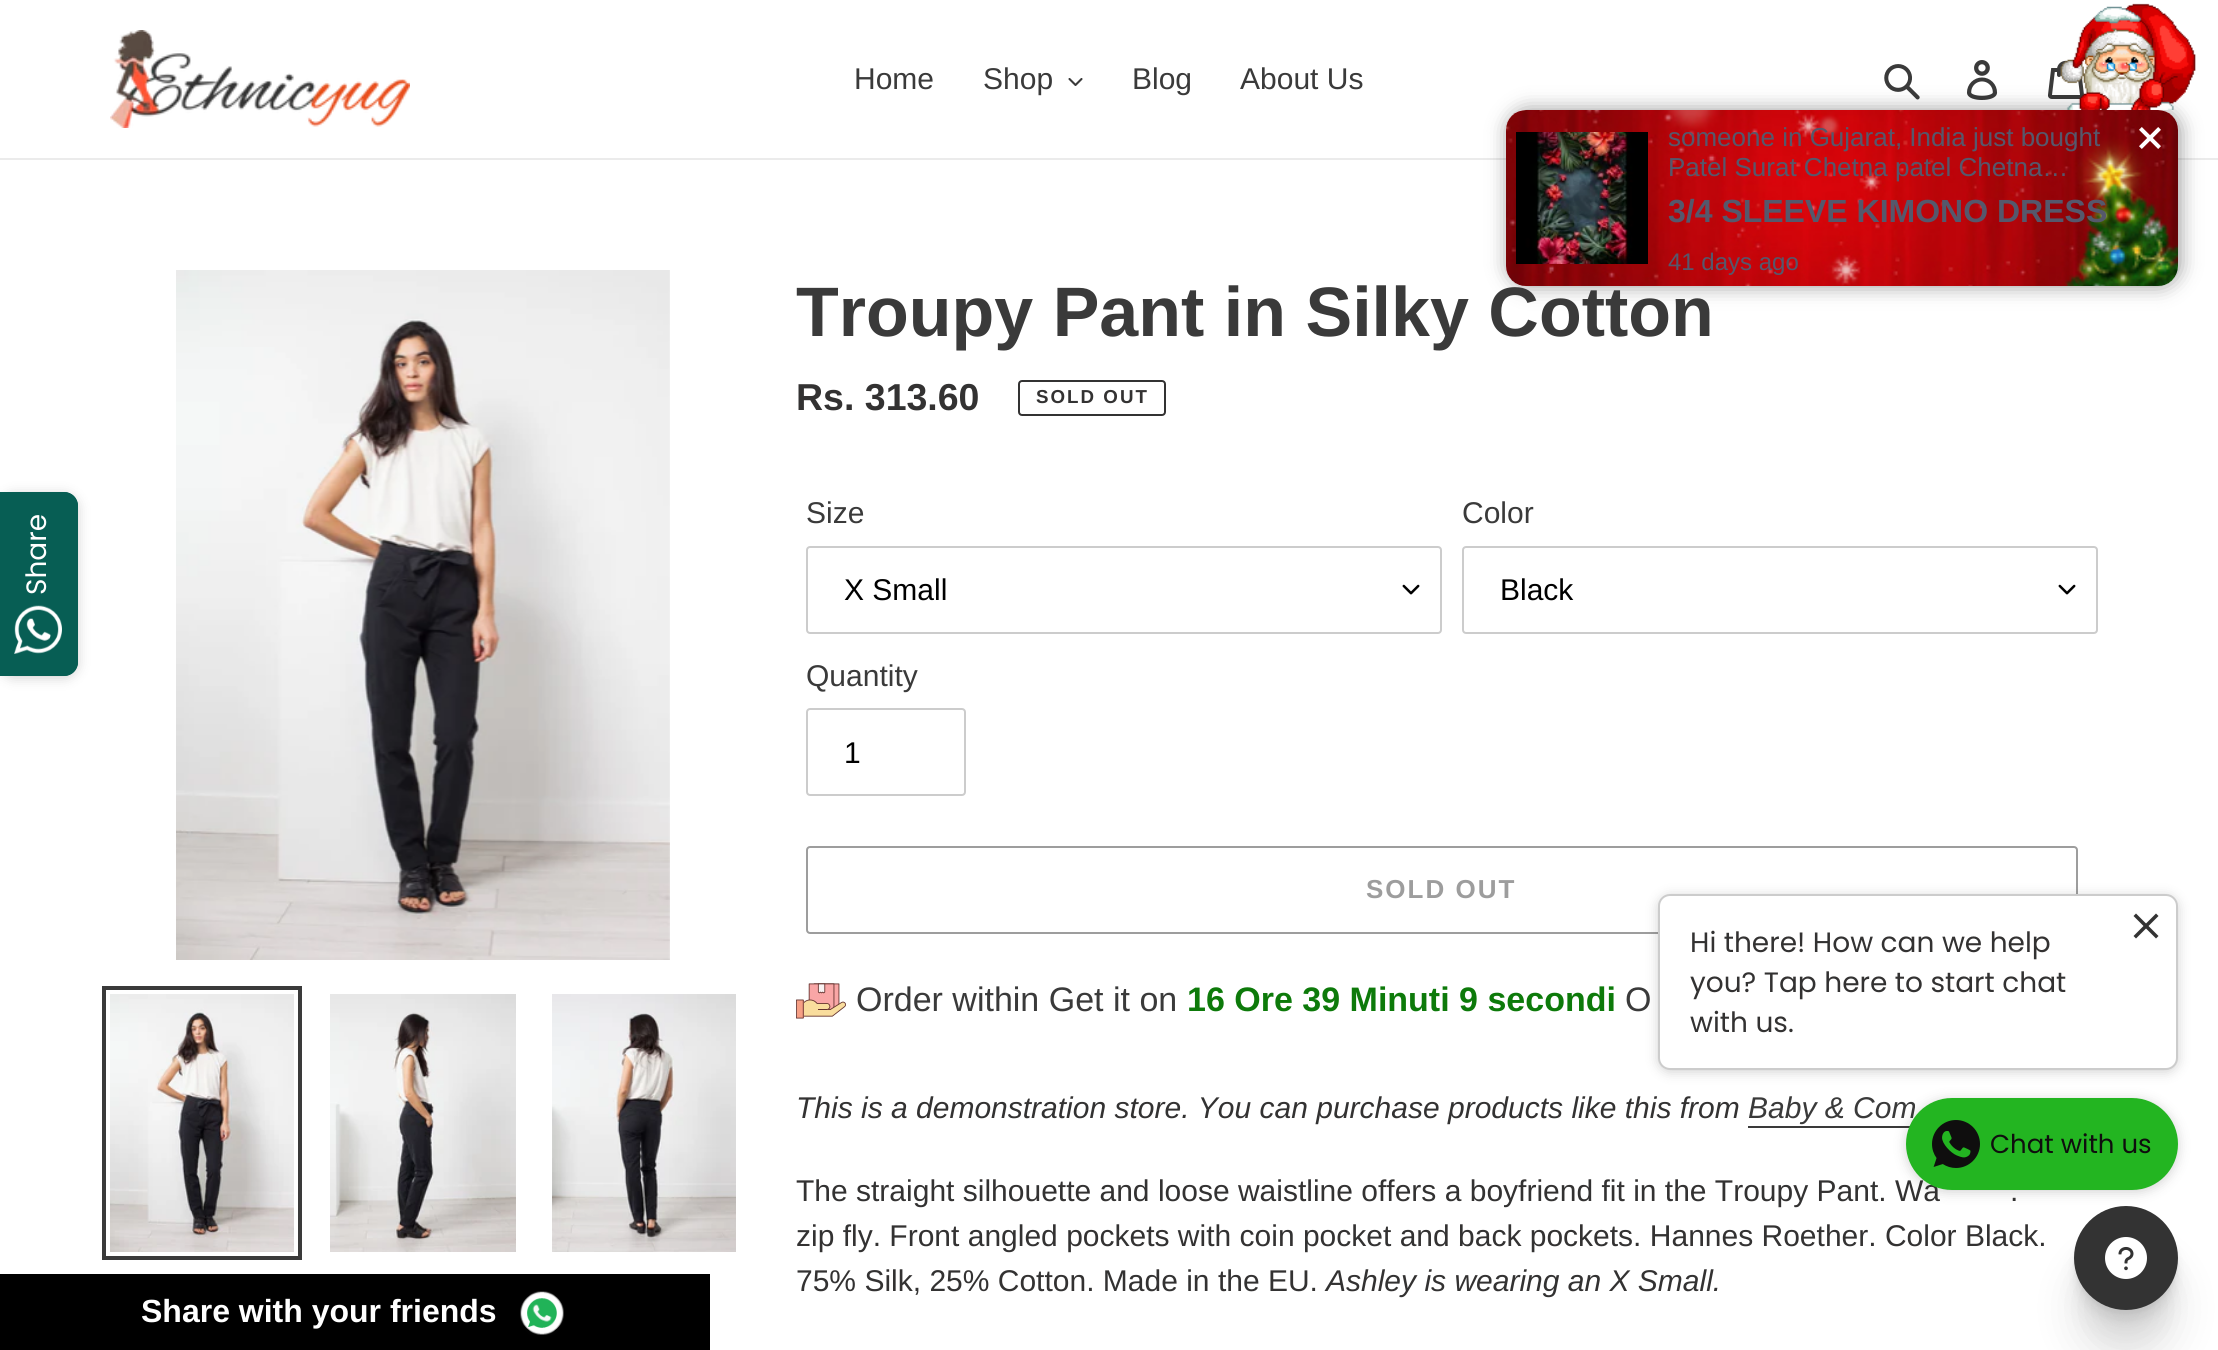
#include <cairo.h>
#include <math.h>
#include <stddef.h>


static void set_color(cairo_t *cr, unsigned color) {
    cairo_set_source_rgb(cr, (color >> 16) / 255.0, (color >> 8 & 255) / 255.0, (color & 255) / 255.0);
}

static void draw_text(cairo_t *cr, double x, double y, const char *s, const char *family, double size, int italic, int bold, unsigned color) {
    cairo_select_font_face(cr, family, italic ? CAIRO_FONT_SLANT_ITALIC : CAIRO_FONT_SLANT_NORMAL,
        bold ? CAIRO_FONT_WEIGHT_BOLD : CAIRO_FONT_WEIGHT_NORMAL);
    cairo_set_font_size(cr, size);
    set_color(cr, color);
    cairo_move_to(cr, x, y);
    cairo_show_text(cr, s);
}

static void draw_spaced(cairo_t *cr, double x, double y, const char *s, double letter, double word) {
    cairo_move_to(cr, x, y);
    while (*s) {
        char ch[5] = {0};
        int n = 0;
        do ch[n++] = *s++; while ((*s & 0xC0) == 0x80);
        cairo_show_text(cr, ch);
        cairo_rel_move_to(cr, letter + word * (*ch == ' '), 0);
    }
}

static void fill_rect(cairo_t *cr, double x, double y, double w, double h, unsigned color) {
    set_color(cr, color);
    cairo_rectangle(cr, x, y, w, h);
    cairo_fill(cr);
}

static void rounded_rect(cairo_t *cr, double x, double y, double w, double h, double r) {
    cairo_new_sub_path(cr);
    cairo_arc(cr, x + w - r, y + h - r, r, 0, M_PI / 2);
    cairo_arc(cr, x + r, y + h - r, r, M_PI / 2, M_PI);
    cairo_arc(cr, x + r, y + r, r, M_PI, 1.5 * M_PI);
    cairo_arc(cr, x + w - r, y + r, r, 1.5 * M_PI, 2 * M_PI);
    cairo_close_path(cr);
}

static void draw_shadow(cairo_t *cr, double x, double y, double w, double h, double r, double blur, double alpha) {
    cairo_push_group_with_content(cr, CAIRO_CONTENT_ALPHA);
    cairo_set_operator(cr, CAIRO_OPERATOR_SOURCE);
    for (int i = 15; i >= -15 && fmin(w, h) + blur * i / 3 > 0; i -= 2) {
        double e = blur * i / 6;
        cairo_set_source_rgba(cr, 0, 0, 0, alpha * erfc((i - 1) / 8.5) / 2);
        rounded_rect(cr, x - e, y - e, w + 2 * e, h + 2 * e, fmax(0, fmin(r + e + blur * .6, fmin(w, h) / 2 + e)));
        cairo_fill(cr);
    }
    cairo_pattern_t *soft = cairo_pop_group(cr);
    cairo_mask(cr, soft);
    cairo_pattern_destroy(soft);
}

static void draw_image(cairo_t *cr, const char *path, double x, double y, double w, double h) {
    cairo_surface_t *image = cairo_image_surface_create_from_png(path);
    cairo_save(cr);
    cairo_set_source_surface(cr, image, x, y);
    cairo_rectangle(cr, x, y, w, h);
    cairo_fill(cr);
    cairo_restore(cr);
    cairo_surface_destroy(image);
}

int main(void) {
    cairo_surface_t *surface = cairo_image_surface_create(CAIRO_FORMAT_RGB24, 2218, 1350);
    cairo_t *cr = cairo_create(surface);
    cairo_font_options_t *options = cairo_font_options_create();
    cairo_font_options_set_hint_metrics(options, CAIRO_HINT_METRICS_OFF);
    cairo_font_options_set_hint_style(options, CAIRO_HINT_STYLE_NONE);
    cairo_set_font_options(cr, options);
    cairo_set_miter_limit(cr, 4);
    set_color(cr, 0xFFFFFF);
    cairo_paint(cr);
    fill_rect(cr, 0, 158, 2218, 2, 0xEBEBEB);
    draw_image(cr, "assets/img1.png", 110, 30, 300, 98);
    draw_text(cr, 854, 89, "Home", "Liberation Sans", 30, 0, 0, 0x3A3A3A);
    draw_text(cr, 983, 89, "Shop", "Liberation Sans", 30, 0, 0, 0x3A3A3A);
    draw_image(cr, "assets/img2.png", 1068, 78, 15, 8);
    draw_text(cr, 1132, 89, "Blog", "Liberation Sans", 30, 0, 0, 0x3A3A3A);
    draw_text(cr, 1240, 89, "About Us", "Liberation Sans", 30, 0, 0, 0x3A3A3A);
    draw_image(cr, "assets/img3.png", 1884, 64, 36, 36);
    draw_image(cr, "assets/img4.png", 1967, 60, 31, 40);
    draw_image(cr, "assets/img5.png", 2048, 60, 36, 39);
    set_color(cr, 0x000000);
    draw_shadow(cr, 1508, 110, 672, 176, 20, 10, 0.4);
    draw_text(cr, 796, 336, "Troupy Pant in Silky Cotton", "Liberation Sans", 70, 0, 1, 0x3A3A3A);
    set_color(cr, 0xFFFFFF);
    rounded_rect(cr, 1506, 110, 672, 176, 20);
    cairo_fill(cr);
    draw_image(cr, "assets/img6.png", 1506, 110, 672, 176);
    draw_image(cr, "assets/img7.png", 2060, 3, 136, 107);
    draw_image(cr, "assets/img8.png", 1516, 132, 132, 132);
    draw_text(cr, 1668, 146, "someone in Gujarat, India just bought", "Liberation Sans", 26, 0, 0, 0x55586C);
    draw_text(cr, 1668, 176, "Patel Surat Chetna patel Chetna…", "Liberation Sans", 26, 0, 0, 0x55586C);
    draw_image(cr, "assets/img9.png", 2139, 127, 22, 22);
    draw_text(cr, 1668, 222, "3/4 SLEEVE KIMONO DRESS", "Liberation Sans", 32, 0, 1, 0x55586C);
    draw_text(cr, 1668, 270, "41 days ago", "Liberation Sans", 24, 0, 0, 0x55586C);
    draw_image(cr, "assets/img10.png", 176, 270, 494, 690);
    cairo_rectangle(cr, 104, 988, 196, 270);
    set_color(cr, 0x3A3A3A);
    cairo_set_line_width(cr, 4);
    cairo_stroke(cr);
    draw_image(cr, "assets/img11.png", 110, 994, 184, 258);
    draw_image(cr, "assets/img12.png", 330, 994, 186, 258);
    draw_image(cr, "assets/img13.png", 552, 994, 184, 258);
    draw_text(cr, 796, 410, "Rs. 313.60", "Liberation Sans", 37.5, 0, 1, 0x333232);
    rounded_rect(cr, 1019, 381, 146, 34, 3);
    cairo_set_line_width(cr, 2);
    cairo_stroke(cr);
    cairo_set_font_size(cr, 18.75);
    draw_spaced(cr, 1036, 403, "SOLD OUT", 2, 0);
    draw_text(cr, 806, 523, "Size", "Liberation Sans", 30, 0, 0, 0x3A3A3A);
    draw_image(cr, "assets/img14.png", 1402, 584, 18, 11);
    rounded_rect(cr, 807, 547, 634, 86, 3);
    set_color(cr, 0xCCCCCC);
    cairo_stroke(cr);
    draw_text(cr, 844, 600, "X Small", "Liberation Sans", 30, 0, 0, 0x000000);
    draw_text(cr, 1462, 523, "Color", "Liberation Sans", 30, 0, 0, 0x3A3A3A);
    draw_image(cr, "assets/img14.png", 2058, 584, 18, 11);
    rounded_rect(cr, 1463, 547, 634, 86, 3);
    set_color(cr, 0xCCCCCC);
    cairo_stroke(cr);
    draw_text(cr, 1500, 600, "Black", "Liberation Sans", 30, 0, 0, 0x000000);
    draw_text(cr, 806, 686, "Quantity", "Liberation Sans", 30, 0, 0, 0x3A3A3A);
    rounded_rect(cr, 807, 709, 158, 86, 3);
    set_color(cr, 0xCCCCCC);
    cairo_stroke(cr);
    draw_text(cr, 844, 763, "1", "Liberation Sans", 30, 0, 0, 0x000000);
    rounded_rect(cr, 807, 847, 1270, 86, 3);
    set_color(cr, 0x9D9D9D);
    cairo_stroke(cr);
    cairo_select_font_face(cr, "Liberation Sans", CAIRO_FONT_SLANT_NORMAL, CAIRO_FONT_WEIGHT_BOLD);
    cairo_set_font_size(cr, 26);
    draw_spaced(cr, 1366, 898, "SOLD OUT", 2, 0);
    draw_image(cr, "assets/img15.png", 796, 983, 50, 36);
    draw_text(cr, 856, 1011, "Order within Get it on", "Liberation Sans", 34, 0, 0, 0x3A3A3A);
    draw_text(cr, 1187, 1011, "16 Ore 39 Minuti 9 secondi", "Liberation Sans", 34, 0, 1, 0x0D7A0A);
    draw_text(cr, 1625, 1011, "O", "Liberation Sans", 34, 0, 0, 0x3A3A3A);
    draw_text(cr, 796, 1118, "This is a demonstration store. You can purchase products like this from", "Liberation Sans", 30, 1, 0, 0x333232);
    draw_text(cr, 1748, 1118, "Baby & Com", "Liberation Sans", 30, 1, 0, 0x3A3A3A);
    fill_rect(cr, 1748, 1126, 162, 2, 0x3A3A3A);
    draw_text(cr, 796, 1201, "The straight silhouette and loose waistline offers a boyfriend fit in the Troupy Pant. Wa", "Liberation Sans", 30, 0, 0, 0x333232);
    draw_text(cr, 2010, 1201, ".", "Liberation Sans", 30, 0, 0, 0x333232);
    draw_text(cr, 796, 1246, "zip fly. Front angled pockets with coin pocket and back pockets. Hannes Roether. Color Black.", "Liberation Sans", 30, 0, 0, 0x333232);
    draw_text(cr, 796, 1291, "75% Silk, 25% Cotton. Made in the EU.", "Liberation Sans", 30, 0, 0, 0x333232);
    draw_text(cr, 1326, 1291, "Ashley is wearing an X Small.", "Liberation Sans", 30, 1, 0, 0x333232);
    set_color(cr, 0x1B1B1B);
    draw_shadow(cr, 0, 494, 78, 184, 14, 6, 0.2);
    set_color(cr, 0x075E54);
    cairo_new_path(cr);
    cairo_move_to(cr, 0, 492);
    cairo_line_to(cr, 64, 492);
    cairo_curve_to(cr, 71.5, 492, 78, 498.5, 78, 506);
    cairo_line_to(cr, 78, 662);
    cairo_curve_to(cr, 78, 669.5, 71.5, 676, 64, 676);
    cairo_line_to(cr, 0, 676);
    cairo_close_path(cr);
    cairo_fill(cr);
    cairo_set_fill_rule(cr, CAIRO_FILL_RULE_EVEN_ODD);
    cairo_new_path(cr);
    cairo_move_to(cr, 0, 492);
    cairo_line_to(cr, 64, 492);
    cairo_curve_to(cr, 72, 492, 78, 498, 78, 506);
    cairo_line_to(cr, 78, 662);
    cairo_curve_to(cr, 78, 670, 72, 676, 64, 676);
    cairo_line_to(cr, 0, 676);
    cairo_close_path(cr);
    cairo_move_to(cr, 0, 494);
    cairo_line_to(cr, 64, 494);
    cairo_curve_to(cr, 71, 494, 76, 499, 76, 506);
    cairo_line_to(cr, 76, 662);
    cairo_curve_to(cr, 76, 669, 71, 674, 64, 674);
    cairo_line_to(cr, 0, 674);
    cairo_close_path(cr);
    cairo_fill(cr);
    cairo_save(cr);
    cairo_translate(cr, 46, 595);
    cairo_rotate(cr, -90 * M_PI / 180);
    draw_text(cr, 0, 0, "Share", "Poppins", 28, 0, 0, 0xFFFFFF);
    cairo_restore(cr);
    draw_image(cr, "assets/img16.png", 14, 605, 48, 49);
    set_color(cr, 0x1B1B1B);
    draw_shadow(cr, 1658, 896, 520, 176, 12, 6, 0.2);
    set_color(cr, 0xFFFFFF);
    rounded_rect(cr, 1659, 895, 518, 174, 11);
    cairo_fill_preserve(cr);
    set_color(cr, 0xCCCCCC);
    cairo_stroke(cr);
    set_color(cr, 0x333333);
    cairo_set_fill_rule(cr, CAIRO_FILL_RULE_WINDING);
    cairo_new_path(cr);
    cairo_move_to(cr, 2136, 913.5);
    cairo_line_to(cr, 2158.5, 936);
    cairo_line_to(cr, 2156, 938.5);
    cairo_line_to(cr, 2133.5, 916);
    cairo_close_path(cr);
    cairo_fill(cr);
    cairo_new_path(cr);
    cairo_move_to(cr, 2156, 913.5);
    cairo_line_to(cr, 2158.5, 916);
    cairo_line_to(cr, 2136, 938.5);
    cairo_line_to(cr, 2133.5, 936);
    cairo_close_path(cr);
    cairo_fill(cr);
    draw_text(cr, 1690, 952, "Hi there! How can we help", "Poppins", 28, 0, 0, 0x333232);
    draw_text(cr, 1690, 992, "you? Tap here to start chat", "Poppins", 28, 0, 0, 0x333232);
    draw_text(cr, 1690, 1032, "with us.", "Poppins", 28, 0, 0, 0x333232);
    set_color(cr, 0x1B1B1B);
    draw_shadow(cr, 1906, 1100, 272, 92, 46, 6, 0.2);
    set_color(cr, 0x23B521);
    rounded_rect(cr, 1907, 1099, 270, 90, 45);
    cairo_fill_preserve(cr);
    cairo_stroke(cr);
    draw_image(cr, "assets/img17.png", 1932, 1120, 48, 48);
    draw_text(cr, 1990, 1153, "Chat with us", "Poppins", 26, 0, 0, 0x0F0E0E);
    fill_rect(cr, 0, 1274, 710, 76, 0x000000);
    draw_text(cr, 141, 1322, "Share with your friends", "Liberation Sans", 32, 0, 1, 0xFFFFFF);
    draw_image(cr, "assets/img18.png", 520, 1291, 44, 44);
    set_color(cr, 0x000000);
    draw_shadow(cr, 2074, 1256, 104, 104, 52, 20, 0.1);
    draw_shadow(cr, 2074, 1232, 104, 104, 52, 9.5, 0.06);
    draw_shadow(cr, 2074, 1218, 104, 104, 52, 4, 0.06);
    draw_shadow(cr, 2074, 1210, 104, 104, 52, 1.5, 0.04);
    set_color(cr, 0x333333);
    cairo_arc(cr, 2126, 1258, 52, 0, 2 * M_PI);
    cairo_fill(cr);
    draw_image(cr, "assets/img19.png", 2105, 1237, 42, 42);
    cairo_surface_write_to_png(surface, "output.png");
    cairo_font_options_destroy(options);
    cairo_destroy(cr);
    cairo_surface_destroy(surface);
    return 0;
}
